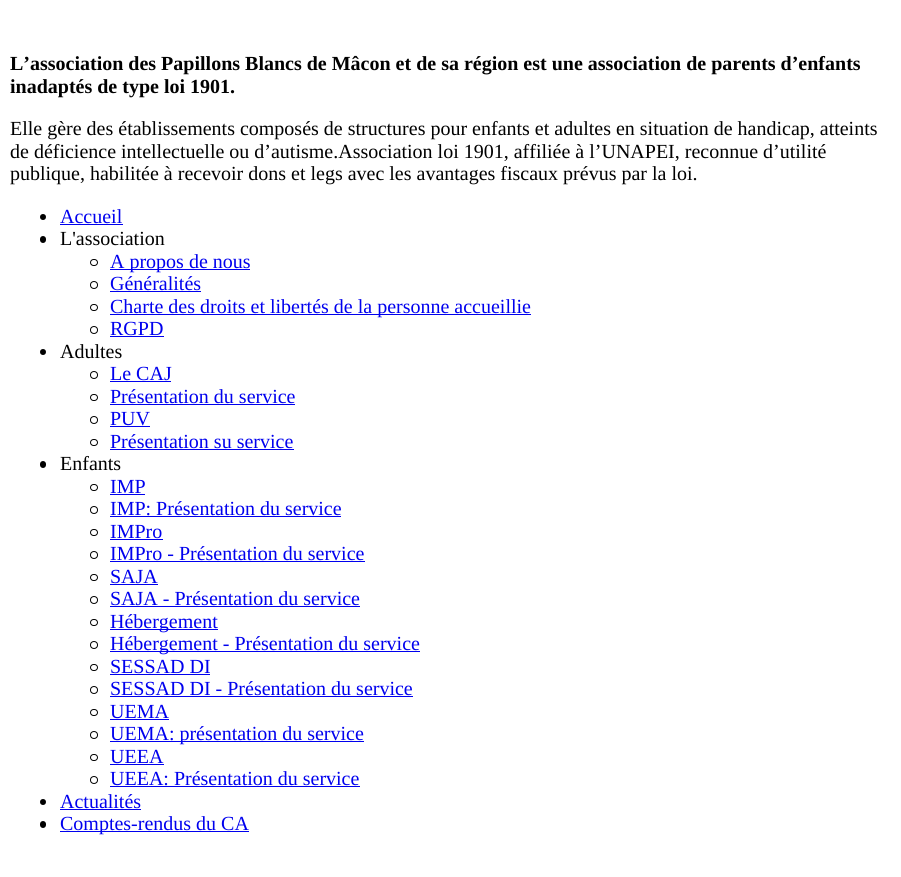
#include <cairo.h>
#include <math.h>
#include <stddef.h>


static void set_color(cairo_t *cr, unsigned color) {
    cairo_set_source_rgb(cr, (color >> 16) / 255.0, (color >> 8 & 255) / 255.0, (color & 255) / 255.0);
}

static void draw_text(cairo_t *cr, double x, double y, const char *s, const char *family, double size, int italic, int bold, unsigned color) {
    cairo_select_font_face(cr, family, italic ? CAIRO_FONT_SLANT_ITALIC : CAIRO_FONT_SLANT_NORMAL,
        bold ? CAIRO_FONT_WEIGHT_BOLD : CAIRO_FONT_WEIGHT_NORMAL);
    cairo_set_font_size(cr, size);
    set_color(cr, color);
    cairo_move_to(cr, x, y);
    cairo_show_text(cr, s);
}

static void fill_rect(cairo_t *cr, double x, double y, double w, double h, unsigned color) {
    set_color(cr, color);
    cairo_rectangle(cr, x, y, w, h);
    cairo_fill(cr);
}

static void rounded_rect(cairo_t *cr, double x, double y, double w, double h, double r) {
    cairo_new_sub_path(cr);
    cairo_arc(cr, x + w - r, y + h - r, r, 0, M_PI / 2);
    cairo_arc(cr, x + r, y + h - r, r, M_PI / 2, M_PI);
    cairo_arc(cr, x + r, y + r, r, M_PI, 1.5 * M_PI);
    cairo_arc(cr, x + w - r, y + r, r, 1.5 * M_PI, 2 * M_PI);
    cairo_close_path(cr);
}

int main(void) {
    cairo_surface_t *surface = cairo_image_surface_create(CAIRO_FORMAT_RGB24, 901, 877);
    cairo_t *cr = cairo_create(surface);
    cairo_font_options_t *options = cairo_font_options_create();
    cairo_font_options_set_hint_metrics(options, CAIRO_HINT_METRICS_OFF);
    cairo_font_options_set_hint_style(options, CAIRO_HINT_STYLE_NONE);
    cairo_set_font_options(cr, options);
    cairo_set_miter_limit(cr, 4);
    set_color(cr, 0xFFFFFF);
    cairo_paint(cr);
    draw_text(cr, 10, 70, "L’association des Papillons Blancs de Mâcon et de sa région est une association de parents d’enfants", "Liberation Serif", 20, 0, 1, 0x000000);
    draw_text(cr, 10, 93, "inadaptés de type loi 1901.", "Liberation Serif", 20, 0, 1, 0x000000);
    draw_text(cr, 10, 135, "Elle gère des établissements composés de structures pour enfants et adultes en situation de handicap, atteints", "Liberation Serif", 20, 0, 0, 0x000000);
    draw_text(cr, 10, 158, "de déficience intellectuelle ou d’autisme.Association loi 1901, affiliée à l’UNAPEI, reconnue d’utilité", "Liberation Serif", 20, 0, 0, 0x000000);
    draw_text(cr, 10, 180, "publique, habilitée à recevoir dons et legs avec les avantages fiscaux prévus par la loi.", "Liberation Serif", 20, 0, 0, 0x000000);
    cairo_new_path(cr);
    cairo_arc(cr, 43, 217, 3, 0, 2 * M_PI);
    cairo_fill(cr);
    draw_text(cr, 60, 223, "Accueil", "Liberation Serif", 20, 0, 0, 0x0000EE);
    fill_rect(cr, 60, 224, 63, 1, 0x0000EE);
    set_color(cr, 0x000000);
    rounded_rect(cr, 40, 236, 6, 7, 3);
    cairo_fill(cr);
    draw_text(cr, 60, 245, "L'association", "Liberation Serif", 20, 0, 0, 0x000000);
    rounded_rect(cr, 90.5, 259.5, 7, 6, 3);
    cairo_set_line_width(cr, 1);
    cairo_stroke(cr);
    fill_rect(cr, 110, 269, 140, 1, 0x0000EE);
    draw_text(cr, 110, 268, "A propos de nous", "Liberation Serif", 20, 0, 0, 0x0000EE);
    cairo_new_path(cr);
    cairo_arc(cr, 94, 285, 3.5, 0, 2 * M_PI);
    set_color(cr, 0x000000);
    cairo_stroke(cr);
    draw_text(cr, 110, 290, "Généralités", "Liberation Serif", 20, 0, 0, 0x0000EE);
    fill_rect(cr, 110, 291, 91, 1, 0x0000EE);
    rounded_rect(cr, 90.5, 304.5, 7, 6, 3);
    set_color(cr, 0x000000);
    cairo_stroke(cr);
    fill_rect(cr, 110, 314, 421, 1, 0x0000EE);
    draw_text(cr, 110, 313, "Charte des droits et libertés de la personne accueillie", "Liberation Serif", 20, 0, 0, 0x0000EE);
    cairo_new_path(cr);
    cairo_arc(cr, 94, 330, 3.5, 0, 2 * M_PI);
    set_color(cr, 0x000000);
    cairo_stroke(cr);
    draw_text(cr, 110, 335, "RGPD", "Liberation Serif", 20, 0, 0, 0x0000EE);
    fill_rect(cr, 110, 336, 54, 1, 0x0000EE);
    set_color(cr, 0x000000);
    cairo_new_path(cr);
    cairo_arc(cr, 43, 352, 3, 0, 2 * M_PI);
    cairo_fill(cr);
    draw_text(cr, 60, 358, "Adultes", "Liberation Serif", 20, 0, 0, 0x000000);
    cairo_new_path(cr);
    cairo_arc(cr, 94, 375, 3.5, 0, 2 * M_PI);
    cairo_stroke(cr);
    draw_text(cr, 110, 380, "Le CAJ", "Liberation Serif", 20, 0, 0, 0x0000EE);
    fill_rect(cr, 110, 381, 61, 1, 0x0000EE);
    rounded_rect(cr, 90.5, 394.5, 7, 6, 3);
    set_color(cr, 0x000000);
    cairo_stroke(cr);
    draw_text(cr, 110, 403, "Présentation du service", "Liberation Serif", 20, 0, 0, 0x0000EE);
    fill_rect(cr, 110, 404, 185, 1, 0x0000EE);
    cairo_new_path(cr);
    cairo_arc(cr, 94, 420, 3.5, 0, 2 * M_PI);
    set_color(cr, 0x000000);
    cairo_stroke(cr);
    draw_text(cr, 110, 425, "PUV", "Liberation Serif", 20, 0, 0, 0x0000EE);
    fill_rect(cr, 110, 426, 40, 1, 0x0000EE);
    rounded_rect(cr, 90.5, 439.5, 7, 6, 3);
    set_color(cr, 0x000000);
    cairo_stroke(cr);
    draw_text(cr, 110, 448, "Présentation su service", "Liberation Serif", 20, 0, 0, 0x0000EE);
    fill_rect(cr, 110, 449, 184, 1, 0x0000EE);
    set_color(cr, 0x000000);
    rounded_rect(cr, 40, 461, 6, 7, 3);
    cairo_fill(cr);
    draw_text(cr, 60, 470, "Enfants", "Liberation Serif", 20, 0, 0, 0x000000);
    rounded_rect(cr, 90.5, 484.5, 7, 6, 3);
    cairo_stroke(cr);
    draw_text(cr, 110, 493, "IMP", "Liberation Serif", 20, 0, 0, 0x0000EE);
    fill_rect(cr, 110, 494, 35, 1, 0x0000EE);
    cairo_new_path(cr);
    cairo_arc(cr, 94, 510, 3.5, 0, 2 * M_PI);
    set_color(cr, 0x000000);
    cairo_stroke(cr);
    draw_text(cr, 110, 515, "IMP: Présentation du service", "Liberation Serif", 20, 0, 0, 0x0000EE);
    fill_rect(cr, 110, 516, 231, 1, 0x0000EE);
    rounded_rect(cr, 90.5, 529.5, 7, 6, 3);
    set_color(cr, 0x000000);
    cairo_stroke(cr);
    draw_text(cr, 110, 538, "IMPro", "Liberation Serif", 20, 0, 0, 0x0000EE);
    fill_rect(cr, 110, 539, 53, 1, 0x0000EE);
    cairo_new_path(cr);
    cairo_arc(cr, 94, 555, 3.5, 0, 2 * M_PI);
    set_color(cr, 0x000000);
    cairo_stroke(cr);
    draw_text(cr, 110, 560, "IMPro - Présentation du service", "Liberation Serif", 20, 0, 0, 0x0000EE);
    fill_rect(cr, 110, 561, 255, 1, 0x0000EE);
    rounded_rect(cr, 90.5, 574.5, 7, 6, 3);
    set_color(cr, 0x000000);
    cairo_stroke(cr);
    draw_text(cr, 110, 583, "SAJA", "Liberation Serif", 20, 0, 0, 0x0000EE);
    fill_rect(cr, 110, 584, 48, 1, 0x0000EE);
    cairo_new_path(cr);
    cairo_arc(cr, 94, 600, 3.5, 0, 2 * M_PI);
    set_color(cr, 0x000000);
    cairo_stroke(cr);
    draw_text(cr, 110, 605, "SAJA - Présentation du service", "Liberation Serif", 20, 0, 0, 0x0000EE);
    fill_rect(cr, 110, 606, 250, 1, 0x0000EE);
    rounded_rect(cr, 90.5, 619.5, 7, 6, 3);
    set_color(cr, 0x000000);
    cairo_stroke(cr);
    fill_rect(cr, 110, 629, 108, 1, 0x0000EE);
    draw_text(cr, 110, 628, "Hébergement", "Liberation Serif", 20, 0, 0, 0x0000EE);
    cairo_new_path(cr);
    cairo_arc(cr, 94, 645, 3.5, 0, 2 * M_PI);
    set_color(cr, 0x000000);
    cairo_stroke(cr);
    fill_rect(cr, 110, 651, 310, 1, 0x0000EE);
    draw_text(cr, 110, 650, "Hébergement - Présentation du service", "Liberation Serif", 20, 0, 0, 0x0000EE);
    rounded_rect(cr, 90.5, 664.5, 7, 6, 3);
    set_color(cr, 0x000000);
    cairo_stroke(cr);
    draw_text(cr, 110, 673, "SESSAD DI", "Liberation Serif", 20, 0, 0, 0x0000EE);
    fill_rect(cr, 110, 674, 100, 1, 0x0000EE);
    cairo_new_path(cr);
    cairo_arc(cr, 94, 690, 3.5, 0, 2 * M_PI);
    set_color(cr, 0x000000);
    cairo_stroke(cr);
    draw_text(cr, 110, 695, "SESSAD DI - Présentation du service", "Liberation Serif", 20, 0, 0, 0x0000EE);
    fill_rect(cr, 110, 696, 303, 1, 0x0000EE);
    rounded_rect(cr, 90.5, 709.5, 7, 6, 3);
    set_color(cr, 0x000000);
    cairo_stroke(cr);
    draw_text(cr, 110, 718, "UEMA", "Liberation Serif", 20, 0, 0, 0x0000EE);
    fill_rect(cr, 110, 719, 59, 1, 0x0000EE);
    cairo_new_path(cr);
    cairo_arc(cr, 94, 735, 3.5, 0, 2 * M_PI);
    set_color(cr, 0x000000);
    cairo_stroke(cr);
    fill_rect(cr, 110, 741, 254, 1, 0x0000EE);
    draw_text(cr, 110, 740, "UEMA: présentation du service", "Liberation Serif", 20, 0, 0, 0x0000EE);
    rounded_rect(cr, 90.5, 754.5, 7, 6, 3);
    set_color(cr, 0x000000);
    cairo_stroke(cr);
    draw_text(cr, 110, 763, "UEEA", "Liberation Serif", 20, 0, 0, 0x0000EE);
    fill_rect(cr, 110, 764, 54, 1, 0x0000EE);
    cairo_new_path(cr);
    cairo_arc(cr, 94, 780, 3.5, 0, 2 * M_PI);
    set_color(cr, 0x000000);
    cairo_stroke(cr);
    draw_text(cr, 110, 785, "UEEA: Présentation du service", "Liberation Serif", 20, 0, 0, 0x0000EE);
    fill_rect(cr, 110, 786, 250, 1, 0x0000EE);
    set_color(cr, 0x000000);
    cairo_new_path(cr);
    cairo_arc(cr, 43, 802, 3, 0, 2 * M_PI);
    cairo_fill(cr);
    draw_text(cr, 60, 808, "Actualités", "Liberation Serif", 20, 0, 0, 0x0000EE);
    fill_rect(cr, 60, 809, 81, 1, 0x0000EE);
    set_color(cr, 0x000000);
    rounded_rect(cr, 40, 821, 6, 7, 3);
    cairo_fill(cr);
    fill_rect(cr, 60, 831, 189, 1, 0x0000EE);
    draw_text(cr, 60, 830, "Comptes-rendus du CA", "Liberation Serif", 20, 0, 0, 0x0000EE);
    cairo_surface_write_to_png(surface, "output.png");
    cairo_font_options_destroy(options);
    cairo_destroy(cr);
    cairo_surface_destroy(surface);
    return 0;
}
